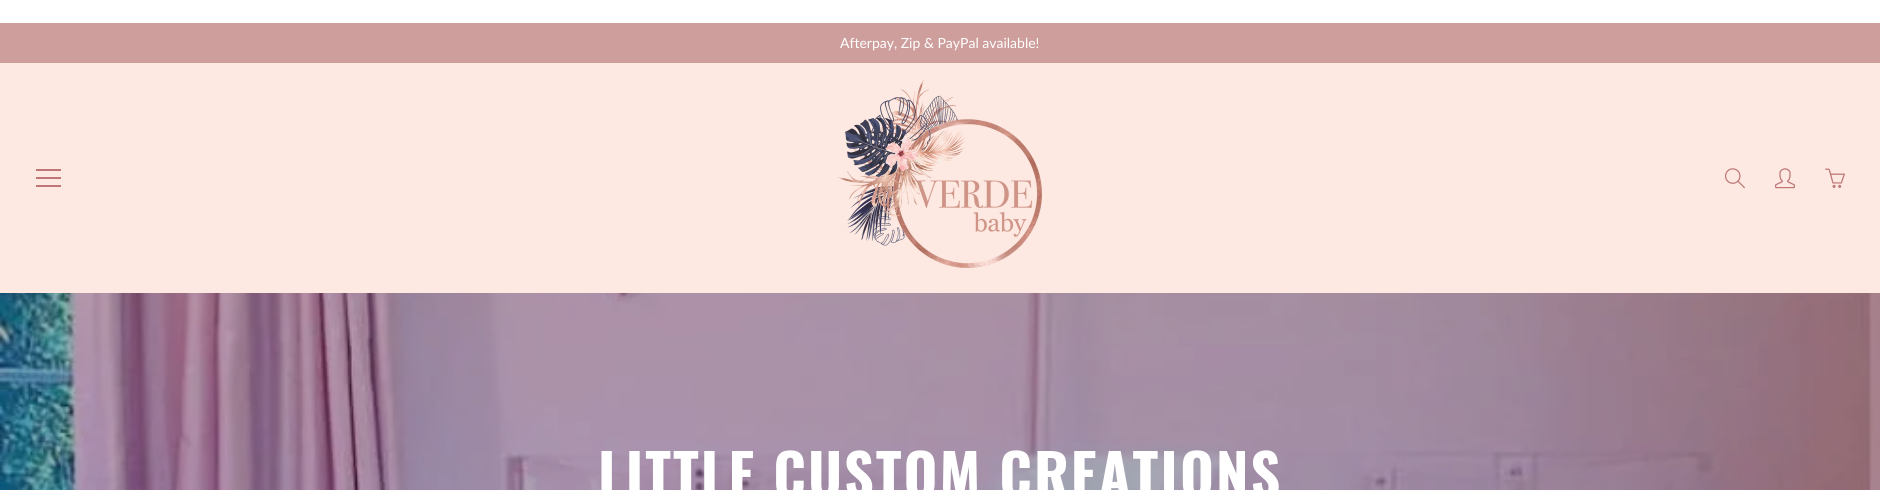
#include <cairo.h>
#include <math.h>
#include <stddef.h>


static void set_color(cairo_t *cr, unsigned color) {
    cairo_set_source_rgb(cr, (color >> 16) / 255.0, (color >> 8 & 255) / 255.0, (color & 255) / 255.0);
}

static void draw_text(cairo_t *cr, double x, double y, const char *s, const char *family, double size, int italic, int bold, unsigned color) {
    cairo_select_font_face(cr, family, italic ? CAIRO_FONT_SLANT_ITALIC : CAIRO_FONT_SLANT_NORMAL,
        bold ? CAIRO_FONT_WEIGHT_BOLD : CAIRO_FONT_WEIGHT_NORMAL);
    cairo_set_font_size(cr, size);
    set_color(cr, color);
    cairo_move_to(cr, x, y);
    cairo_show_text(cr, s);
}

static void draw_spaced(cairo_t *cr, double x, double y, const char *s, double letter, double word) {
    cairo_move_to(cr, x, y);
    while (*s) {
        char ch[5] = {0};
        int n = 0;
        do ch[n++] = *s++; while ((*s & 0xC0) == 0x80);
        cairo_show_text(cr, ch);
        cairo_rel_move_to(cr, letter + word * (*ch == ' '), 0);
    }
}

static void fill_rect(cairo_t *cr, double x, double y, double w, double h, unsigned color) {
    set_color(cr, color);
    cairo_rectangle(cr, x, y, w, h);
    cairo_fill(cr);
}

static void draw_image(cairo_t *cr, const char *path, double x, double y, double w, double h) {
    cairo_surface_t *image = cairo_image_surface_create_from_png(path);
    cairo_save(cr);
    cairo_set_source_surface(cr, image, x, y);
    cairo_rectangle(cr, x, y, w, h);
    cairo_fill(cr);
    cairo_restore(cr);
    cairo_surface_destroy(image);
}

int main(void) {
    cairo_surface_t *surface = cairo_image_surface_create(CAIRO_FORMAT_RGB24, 1880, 490);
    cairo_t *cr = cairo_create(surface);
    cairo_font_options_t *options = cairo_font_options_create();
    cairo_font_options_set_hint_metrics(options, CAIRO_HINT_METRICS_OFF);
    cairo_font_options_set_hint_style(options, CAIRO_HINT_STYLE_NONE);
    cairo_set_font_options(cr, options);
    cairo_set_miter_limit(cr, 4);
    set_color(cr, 0xFFFFFF);
    cairo_paint(cr);
    fill_rect(cr, 0, 23, 1880, 40, 0xCD9E9C);
    draw_text(cr, 840, 48, "Afterpay, Zip & PayPal available!", "Lato", 14, 0, 0, 0xFFFFFF);
    fill_rect(cr, 0, 63, 1880, 230, 0xFDE9E1);
    draw_image(cr, "assets/img1.png", 838, 79, 204, 189);
    fill_rect(cr, 36, 177, 25, 2, 0xBE7676);
    fill_rect(cr, 36, 169, 25, 2, 0xBE7676);
    fill_rect(cr, 36, 185, 25, 2, 0xBE7676);
    draw_image(cr, "assets/img2.png", 1725, 168, 20, 21);
    draw_image(cr, "assets/img3.png", 1775, 168, 20, 21);
    draw_image(cr, "assets/img4.png", 1825, 168, 20, 20);
    draw_image(cr, "assets/img5.png", 0, 293, 1880, 197);
    cairo_select_font_face(cr, "Oswald", CAIRO_FONT_SLANT_NORMAL, CAIRO_FONT_WEIGHT_BOLD);
    cairo_set_font_size(cr, 58);
    set_color(cr, 0xFFFFFF);
    draw_spaced(cr, 598, 498, "LITTLE CUSTOM CREATIONS", 2, 0);
    cairo_surface_write_to_png(surface, "output.png");
    cairo_font_options_destroy(options);
    cairo_destroy(cr);
    cairo_surface_destroy(surface);
    return 0;
}
